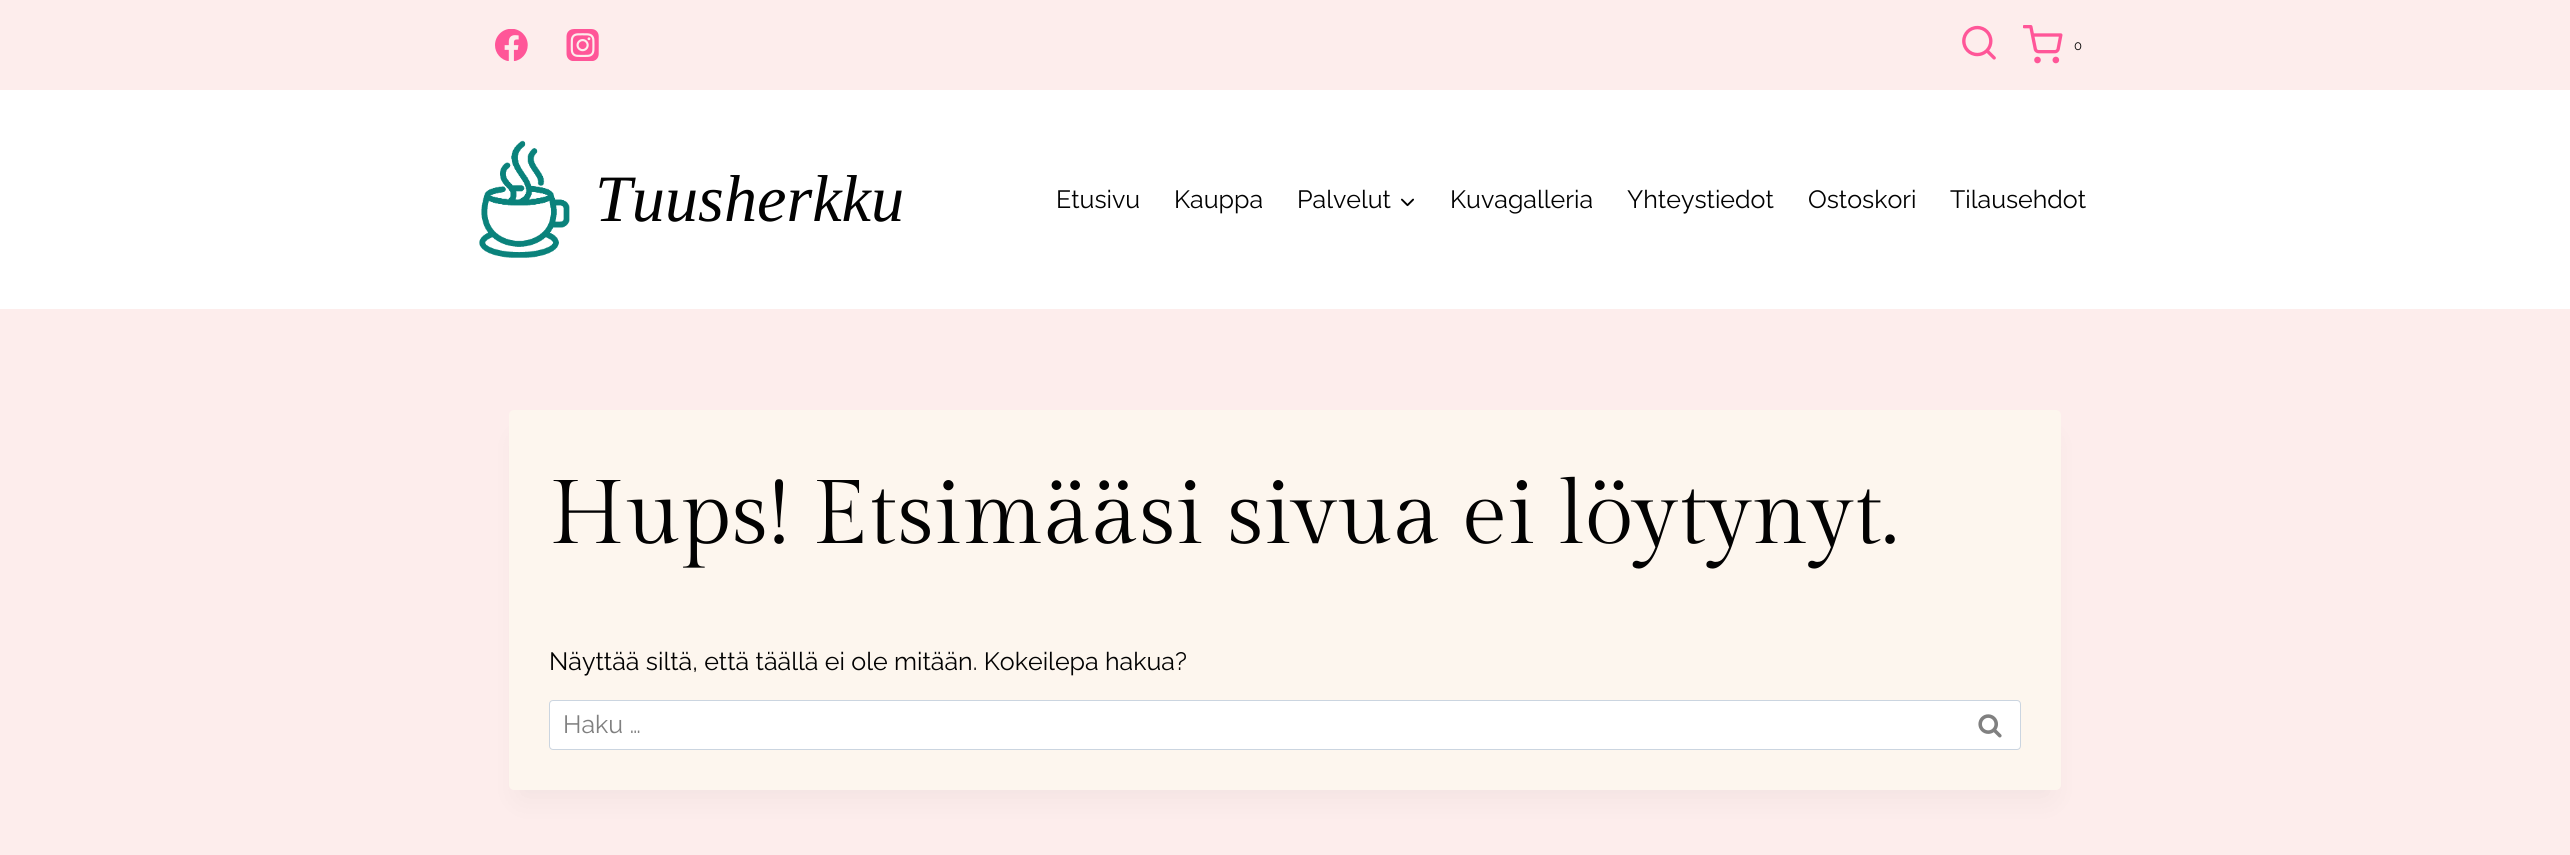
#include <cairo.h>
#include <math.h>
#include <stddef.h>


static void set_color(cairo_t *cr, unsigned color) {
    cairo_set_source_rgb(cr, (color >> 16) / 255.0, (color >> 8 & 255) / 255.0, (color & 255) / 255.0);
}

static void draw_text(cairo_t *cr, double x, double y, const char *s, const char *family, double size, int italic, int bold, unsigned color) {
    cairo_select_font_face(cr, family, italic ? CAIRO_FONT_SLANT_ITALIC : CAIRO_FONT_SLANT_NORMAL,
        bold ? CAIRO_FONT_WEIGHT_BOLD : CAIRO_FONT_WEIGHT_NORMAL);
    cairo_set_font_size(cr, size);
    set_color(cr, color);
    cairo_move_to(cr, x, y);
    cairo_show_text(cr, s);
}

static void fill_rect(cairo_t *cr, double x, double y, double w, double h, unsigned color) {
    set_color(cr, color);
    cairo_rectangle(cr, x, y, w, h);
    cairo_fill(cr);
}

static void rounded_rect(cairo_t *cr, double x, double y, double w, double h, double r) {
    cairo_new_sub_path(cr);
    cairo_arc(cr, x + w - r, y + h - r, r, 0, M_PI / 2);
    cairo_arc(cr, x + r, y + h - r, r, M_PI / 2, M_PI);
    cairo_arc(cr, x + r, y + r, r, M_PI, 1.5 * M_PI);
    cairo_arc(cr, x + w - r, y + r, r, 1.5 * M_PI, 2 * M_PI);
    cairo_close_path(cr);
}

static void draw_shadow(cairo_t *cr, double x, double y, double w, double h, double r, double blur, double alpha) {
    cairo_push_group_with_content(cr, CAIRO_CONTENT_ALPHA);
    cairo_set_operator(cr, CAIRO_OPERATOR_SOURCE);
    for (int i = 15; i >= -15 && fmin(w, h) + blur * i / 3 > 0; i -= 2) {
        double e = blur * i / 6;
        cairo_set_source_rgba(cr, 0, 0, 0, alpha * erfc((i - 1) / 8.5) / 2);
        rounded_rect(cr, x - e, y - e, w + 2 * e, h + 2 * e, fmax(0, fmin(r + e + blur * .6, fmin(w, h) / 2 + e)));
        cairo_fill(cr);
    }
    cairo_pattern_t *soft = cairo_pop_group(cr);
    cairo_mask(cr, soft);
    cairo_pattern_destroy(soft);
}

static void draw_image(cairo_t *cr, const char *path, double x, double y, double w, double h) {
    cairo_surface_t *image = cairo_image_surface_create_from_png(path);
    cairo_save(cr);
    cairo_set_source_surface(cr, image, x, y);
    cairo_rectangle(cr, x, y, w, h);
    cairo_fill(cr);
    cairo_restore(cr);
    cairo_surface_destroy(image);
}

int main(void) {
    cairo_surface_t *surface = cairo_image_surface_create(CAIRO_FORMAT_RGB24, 2570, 855);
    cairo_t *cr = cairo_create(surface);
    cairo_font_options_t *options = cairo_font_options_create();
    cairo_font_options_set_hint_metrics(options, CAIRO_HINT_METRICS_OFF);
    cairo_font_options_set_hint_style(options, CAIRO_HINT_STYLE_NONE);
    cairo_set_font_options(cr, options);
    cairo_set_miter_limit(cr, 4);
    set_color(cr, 0xFDEDEC);
    cairo_paint(cr);
    draw_image(cr, "assets/img1.png", 495, 29, 33, 32);
    draw_image(cr, "assets/img2.png", 566, 29, 33, 32);
    draw_image(cr, "assets/img3.png", 1962, 25, 34, 35);
    draw_image(cr, "assets/img4.png", 2023, 25, 40, 39);
    draw_text(cr, 2074, 50, "0", "Raleway", 13, 0, 0, 0x020202);
    fill_rect(cr, 0, 90, 2570, 219, 0xFFFFFF);
    draw_image(cr, "assets/img5.png", 479, 140, 91, 118);
    draw_text(cr, 595, 221, "Tuusherkku", "Liberation Serif", 66.25, 1, 0, 0x020202);
    draw_text(cr, 1056, 208, "Etusivu", "Raleway", 25, 0, 0, 0x020202);
    draw_text(cr, 1174, 208, "Kauppa", "Raleway", 25, 0, 0, 0x020202);
    draw_text(cr, 1297, 208, "Palvelut", "Raleway", 25, 0, 0, 0x020202);
    draw_image(cr, "assets/img6.png", 1401, 198, 13, 9);
    draw_text(cr, 1450, 208, "Kuvagalleria", "Raleway", 25, 0, 0, 0x020202);
    draw_text(cr, 1627, 208, "Yhteystiedot", "Raleway", 25, 0, 0, 0x020202);
    draw_text(cr, 1808, 208, "Ostoskori", "Raleway", 25, 0, 0, 0x020202);
    draw_text(cr, 1950, 208, "Tilausehdot", "Raleway", 25, 0, 0, 0x020202);
    set_color(cr, 0x000000);
    draw_shadow(cr, 521, 441, 1528, 355, 0, 15.5, 0.05);
    set_color(cr, 0xFDF6EE);
    rounded_rect(cr, 509, 410, 1552, 380, 5);
    cairo_fill(cr);
    draw_text(cr, 549, 543, "Hups! Etsimääsi sivua ei löytynyt.", "Gilda Display", 90, 0, 0, 0x020202);
    draw_text(cr, 549, 670, "Näyttää siltä, että täällä ei ole mitään. Kokeilepa hakua?", "Raleway", 25, 0, 0, 0x020202);
    set_color(cr, 0xFFFFFF);
    rounded_rect(cr, 549.5, 700.5, 1471, 49, 3.5);
    cairo_fill_preserve(cr);
    set_color(cr, 0xCBD5E0);
    cairo_set_line_width(cr, 1);
    cairo_stroke(cr);
    draw_text(cr, 563, 733, "Haku …", "Raleway", 25, 0, 0, 0x808080);
    draw_image(cr, "assets/img7.png", 1978, 714, 24, 24);
    cairo_surface_write_to_png(surface, "output.png");
    cairo_font_options_destroy(options);
    cairo_destroy(cr);
    cairo_surface_destroy(surface);
    return 0;
}
